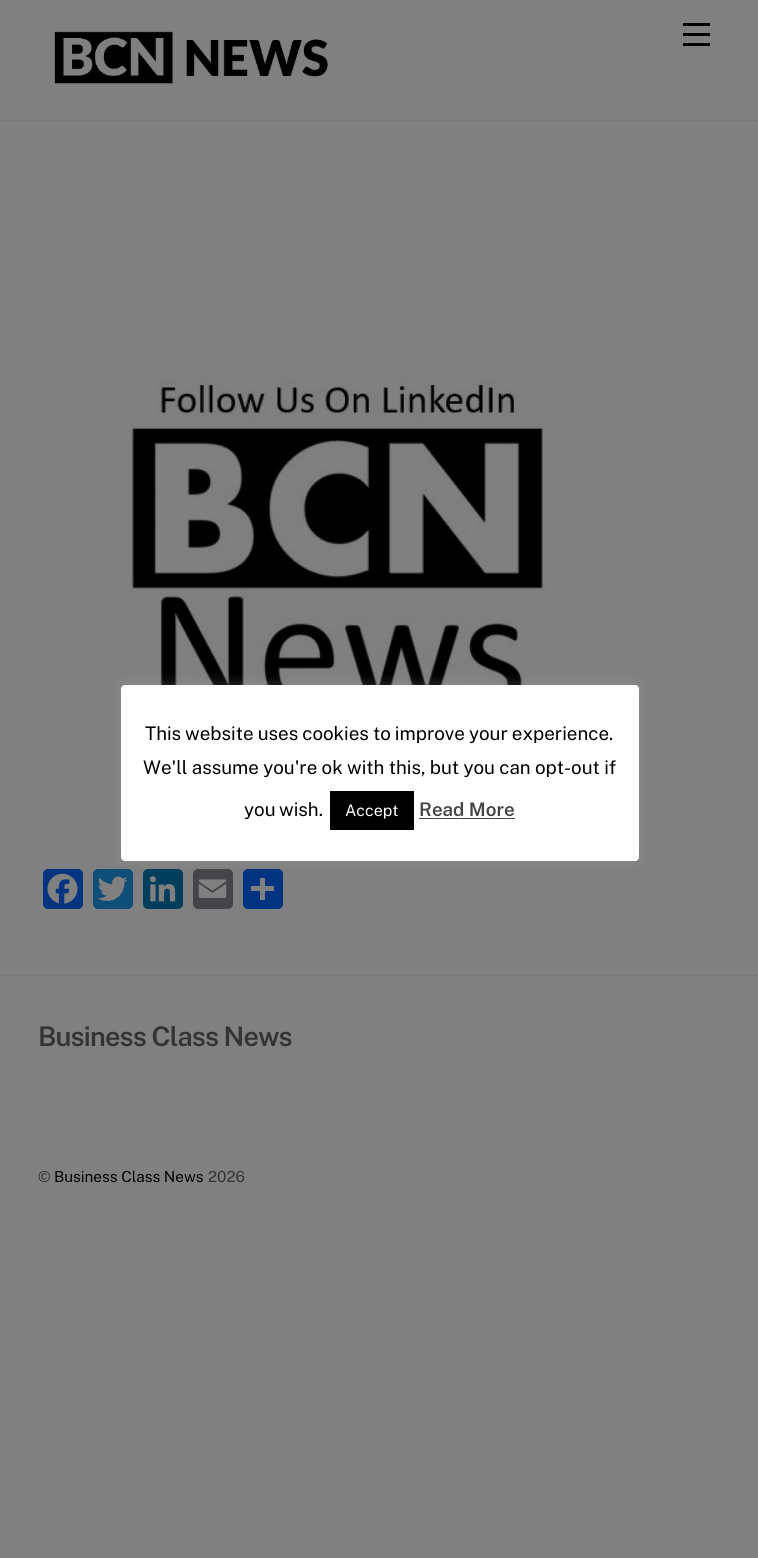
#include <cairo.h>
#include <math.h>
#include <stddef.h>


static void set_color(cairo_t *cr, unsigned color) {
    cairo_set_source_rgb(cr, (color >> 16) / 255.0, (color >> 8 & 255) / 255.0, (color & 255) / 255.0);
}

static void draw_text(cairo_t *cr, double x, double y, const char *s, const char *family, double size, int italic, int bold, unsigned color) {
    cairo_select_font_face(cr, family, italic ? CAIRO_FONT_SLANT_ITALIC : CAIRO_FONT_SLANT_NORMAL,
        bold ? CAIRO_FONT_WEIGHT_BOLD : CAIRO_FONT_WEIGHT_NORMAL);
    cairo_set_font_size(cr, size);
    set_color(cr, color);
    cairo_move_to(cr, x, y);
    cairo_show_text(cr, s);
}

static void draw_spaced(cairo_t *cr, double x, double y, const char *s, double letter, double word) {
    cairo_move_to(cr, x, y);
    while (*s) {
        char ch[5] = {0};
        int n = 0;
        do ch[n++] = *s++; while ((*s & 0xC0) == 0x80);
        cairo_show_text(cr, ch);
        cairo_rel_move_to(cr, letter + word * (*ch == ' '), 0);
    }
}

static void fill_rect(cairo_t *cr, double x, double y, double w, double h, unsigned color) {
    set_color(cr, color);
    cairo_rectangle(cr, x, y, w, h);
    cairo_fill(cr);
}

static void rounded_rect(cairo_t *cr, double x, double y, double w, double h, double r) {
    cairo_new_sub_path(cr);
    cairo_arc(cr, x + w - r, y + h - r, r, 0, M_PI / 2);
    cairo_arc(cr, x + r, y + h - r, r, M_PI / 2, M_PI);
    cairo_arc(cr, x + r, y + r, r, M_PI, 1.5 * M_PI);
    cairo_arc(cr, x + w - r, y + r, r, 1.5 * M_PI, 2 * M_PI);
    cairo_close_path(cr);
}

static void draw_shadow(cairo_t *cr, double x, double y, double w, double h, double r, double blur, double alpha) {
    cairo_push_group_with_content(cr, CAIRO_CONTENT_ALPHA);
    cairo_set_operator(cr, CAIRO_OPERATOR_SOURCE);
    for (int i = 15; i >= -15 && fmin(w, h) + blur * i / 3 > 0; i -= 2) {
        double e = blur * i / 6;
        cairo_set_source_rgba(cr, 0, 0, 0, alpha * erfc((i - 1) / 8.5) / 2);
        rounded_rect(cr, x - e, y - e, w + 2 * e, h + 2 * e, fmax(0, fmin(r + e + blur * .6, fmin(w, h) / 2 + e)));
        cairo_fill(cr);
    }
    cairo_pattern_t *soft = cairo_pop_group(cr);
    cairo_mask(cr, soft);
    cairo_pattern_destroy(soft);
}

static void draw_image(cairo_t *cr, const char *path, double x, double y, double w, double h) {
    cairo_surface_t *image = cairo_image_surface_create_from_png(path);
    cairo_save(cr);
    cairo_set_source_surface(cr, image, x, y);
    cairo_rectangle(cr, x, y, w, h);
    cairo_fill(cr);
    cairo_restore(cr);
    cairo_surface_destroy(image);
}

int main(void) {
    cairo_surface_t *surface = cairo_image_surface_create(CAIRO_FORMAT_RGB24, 758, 1558);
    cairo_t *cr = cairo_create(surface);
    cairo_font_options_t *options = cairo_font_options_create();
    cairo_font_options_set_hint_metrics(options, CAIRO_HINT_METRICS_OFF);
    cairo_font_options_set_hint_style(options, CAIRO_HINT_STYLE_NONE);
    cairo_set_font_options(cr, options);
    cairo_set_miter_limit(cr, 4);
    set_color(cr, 0x808080);
    cairo_paint(cr);
    draw_image(cr, "assets/img2.png", 129, 379, 417, 306);
    set_color(cr, 0x0F4E78);
    rounded_rect(cr, 93, 869, 40, 40, 5);
    cairo_fill(cr);
    draw_image(cr, "assets/img4.png", 97, 876, 31, 25);
    set_color(cr, 0x003E5B);
    rounded_rect(cr, 143, 869, 40, 40, 5);
    cairo_fill(cr);
    draw_image(cr, "assets/img5.png", 149, 876, 27, 26);
    set_color(cr, 0x444548);
    rounded_rect(cr, 193, 869, 40, 40, 5);
    cairo_fill(cr);
    set_color(cr, 0x013380);
    rounded_rect(cr, 243, 869, 40, 40, 5);
    cairo_fill(cr);
    fill_rect(cr, 260, 878, 5, 22, 0x808080);
    set_color(cr, 0xACABAB);
    draw_shadow(cr, 121, 684, 518, 176, 4, 6, 0.3);
    set_color(cr, 0xFFFFFF);
    rounded_rect(cr, 121, 685, 518, 176, 4);
    cairo_fill(cr);
    cairo_select_font_face(cr, "Public Sans", CAIRO_FONT_SLANT_NORMAL, CAIRO_FONT_WEIGHT_NORMAL);
    cairo_set_font_size(cr, 18.75);
    set_color(cr, 0x000000);
    draw_spaced(cr, 145, 740, "This website uses cookies to improve your experience.", 0, -0.5);
    draw_spaced(cr, 143, 774, "We'll assume you're ok with this, but you can opt-out if", 0, -0.25);
    draw_spaced(cr, 244, 816, "you wish.", 0, -1);
    fill_rect(cr, 330, 791, 84, 39, 0x000000);
    draw_text(cr, 345, 816, "Accept", "Public Sans", 16, 0, 0, 0xFFFFFF);
    draw_text(cr, 419, 816, "Read More", "Public Sans SemiBold", 18.75, 0, 0, 0x444444);
    fill_rect(cr, 419, 818, 96, 1, 0x444444);
    fill_rect(cr, 0, 120, 758, 1, 0x797979);
    draw_image(cr, "assets/img1.png", 54, 31, 274, 53);
    fill_rect(cr, 683, 43, 27, 3, 0x000000);
    fill_rect(cr, 683, 23, 27, 3, 0x000000);
    fill_rect(cr, 683, 33, 27, 3, 0x000000);
    set_color(cr, 0x043380);
    rounded_rect(cr, 43, 869, 40, 40, 5);
    cairo_fill(cr);
    draw_image(cr, "assets/img3.png", 47, 873, 31, 31);
    draw_image(cr, "assets/img6.png", 198, 879, 29, 19);
    fill_rect(cr, 251, 886, 23, 5, 0x808080);
    fill_rect(cr, 0, 975, 758, 1, 0x797979);
    cairo_set_font_size(cr, 27);
    set_color(cr, 0x333333);
    draw_spaced(cr, 38, 1046, "Business Class News", -0.8, 0);
    draw_text(cr, 38, 1182, "©", "Public Sans", 15.25, 0, 0, 0x333333);
    draw_text(cr, 54, 1182, "Business Class News", "Public Sans", 15.25, 0, 0, 0x000000);
    draw_text(cr, 208, 1182, "2026", "Public Sans", 15.25, 0, 0, 0x333333);
    cairo_surface_write_to_png(surface, "output.png");
    cairo_font_options_destroy(options);
    cairo_destroy(cr);
    cairo_surface_destroy(surface);
    return 0;
}
